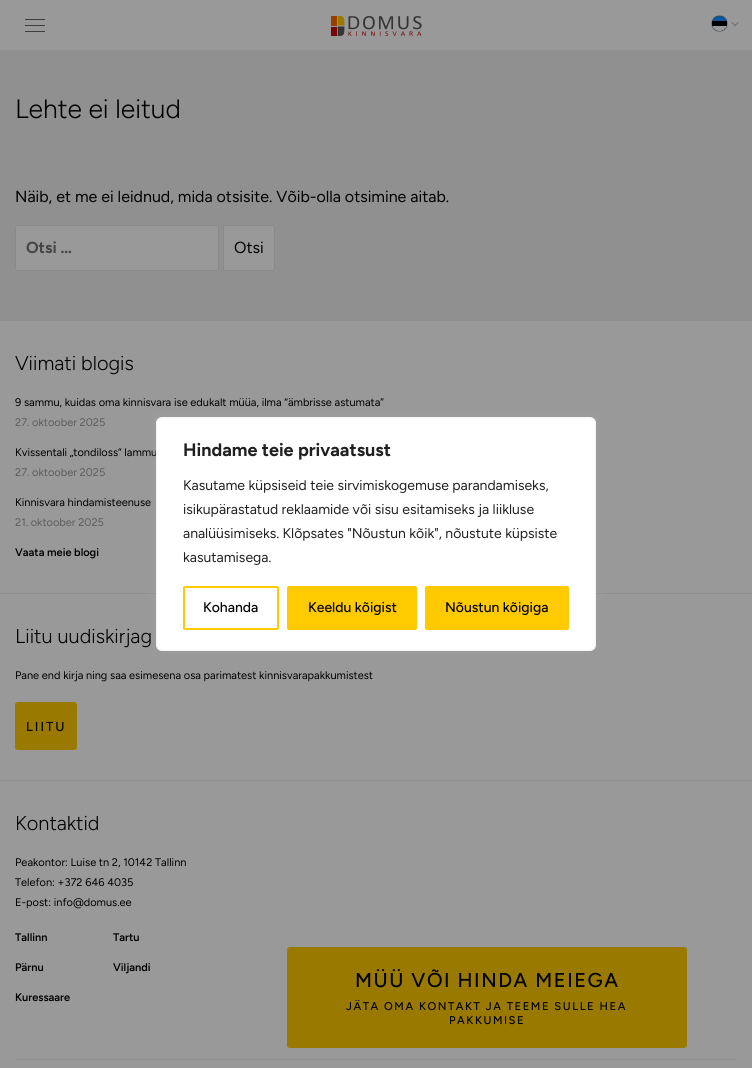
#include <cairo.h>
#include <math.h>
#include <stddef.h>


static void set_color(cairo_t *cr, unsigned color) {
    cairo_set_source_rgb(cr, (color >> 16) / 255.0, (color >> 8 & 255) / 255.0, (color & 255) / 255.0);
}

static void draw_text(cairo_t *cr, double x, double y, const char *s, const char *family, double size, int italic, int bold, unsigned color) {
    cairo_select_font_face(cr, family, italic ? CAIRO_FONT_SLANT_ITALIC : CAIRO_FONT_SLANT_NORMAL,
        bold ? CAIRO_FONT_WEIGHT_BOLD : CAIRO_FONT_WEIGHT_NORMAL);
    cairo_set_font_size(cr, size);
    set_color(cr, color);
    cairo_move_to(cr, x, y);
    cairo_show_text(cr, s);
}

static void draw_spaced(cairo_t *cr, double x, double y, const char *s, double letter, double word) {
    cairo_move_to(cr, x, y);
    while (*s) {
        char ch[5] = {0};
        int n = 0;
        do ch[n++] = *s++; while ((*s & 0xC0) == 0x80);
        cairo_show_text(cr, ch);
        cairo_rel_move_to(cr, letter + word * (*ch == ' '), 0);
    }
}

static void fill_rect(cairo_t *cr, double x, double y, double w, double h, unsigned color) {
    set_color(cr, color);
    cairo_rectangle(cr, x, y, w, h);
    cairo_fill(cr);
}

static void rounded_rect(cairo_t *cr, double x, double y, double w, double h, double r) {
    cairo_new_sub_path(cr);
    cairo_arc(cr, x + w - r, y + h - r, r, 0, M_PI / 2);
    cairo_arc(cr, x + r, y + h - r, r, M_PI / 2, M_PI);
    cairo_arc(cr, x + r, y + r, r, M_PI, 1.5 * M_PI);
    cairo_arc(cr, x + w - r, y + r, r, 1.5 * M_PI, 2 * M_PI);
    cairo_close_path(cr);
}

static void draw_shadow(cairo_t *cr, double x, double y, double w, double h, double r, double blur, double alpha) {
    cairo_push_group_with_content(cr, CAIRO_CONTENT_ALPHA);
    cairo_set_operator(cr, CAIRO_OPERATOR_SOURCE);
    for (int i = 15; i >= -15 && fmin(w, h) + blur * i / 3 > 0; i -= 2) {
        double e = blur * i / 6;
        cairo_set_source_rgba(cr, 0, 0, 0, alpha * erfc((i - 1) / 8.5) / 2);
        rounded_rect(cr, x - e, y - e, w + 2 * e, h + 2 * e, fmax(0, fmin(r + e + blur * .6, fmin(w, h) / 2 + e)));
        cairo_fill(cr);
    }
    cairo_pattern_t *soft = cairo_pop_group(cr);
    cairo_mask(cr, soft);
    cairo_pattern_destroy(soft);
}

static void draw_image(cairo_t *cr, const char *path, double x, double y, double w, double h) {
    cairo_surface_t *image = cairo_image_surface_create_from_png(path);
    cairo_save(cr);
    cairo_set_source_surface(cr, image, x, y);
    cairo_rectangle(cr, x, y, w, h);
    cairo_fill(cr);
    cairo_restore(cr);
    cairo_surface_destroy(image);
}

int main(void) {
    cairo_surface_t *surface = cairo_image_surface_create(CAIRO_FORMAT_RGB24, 752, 1068);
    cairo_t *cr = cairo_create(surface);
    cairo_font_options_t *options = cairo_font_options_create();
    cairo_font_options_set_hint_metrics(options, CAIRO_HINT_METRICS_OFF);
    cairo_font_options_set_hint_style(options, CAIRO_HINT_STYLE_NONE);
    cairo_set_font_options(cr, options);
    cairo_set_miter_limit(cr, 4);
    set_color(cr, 0x909090);
    cairo_paint(cr);
    fill_rect(cr, 0, 0, 752, 50, 0x999999);
    fill_rect(cr, 25, 19, 20, 1, 0x3D3D3D);
    fill_rect(cr, 25, 25, 20, 1, 0x3D3D3D);
    fill_rect(cr, 25, 31, 20, 1, 0x3D3D3D);
    draw_image(cr, "assets/img1.png", 331, 16, 91, 20);
    set_color(cr, 0x000000);
    draw_shadow(cr, 712, 16, 15, 15, 7, 0.5, 1);
    set_color(cr, 0x0B5799);
    rounded_rect(cr, 712, 16, 15, 15, 7);
    cairo_fill(cr);
    cairo_save(cr);
    rounded_rect(cr, 712, 16, 15, 15, 7);
    cairo_clip(cr);
    set_color(cr, 0x000000);
    cairo_new_path(cr);
    cairo_move_to(cr, 712, 21);
    cairo_line_to(cr, 727, 21);
    cairo_line_to(cr, 727, 24);
    cairo_curve_to(cr, 727, 28, 724, 31, 720, 31);
    cairo_line_to(cr, 719, 31);
    cairo_curve_to(cr, 715, 31, 712, 28, 712, 24);
    cairo_close_path(cr);
    cairo_fill(cr);
    fill_rect(cr, 712, 26, 15, 5, 0x999999);
    cairo_restore(cr);
    set_color(cr, 0x5C5C5C);
    cairo_new_path(cr);
    cairo_move_to(cr, 738, 22);
    cairo_line_to(cr, 738.5, 22.5);
    cairo_line_to(cr, 735, 26);
    cairo_line_to(cr, 734.5, 25.5);
    cairo_close_path(cr);
    cairo_fill(cr);
    cairo_new_path(cr);
    cairo_move_to(cr, 732, 22);
    cairo_line_to(cr, 735.5, 25.5);
    cairo_line_to(cr, 735, 26);
    cairo_line_to(cr, 731.5, 22.5);
    cairo_close_path(cr);
    cairo_fill(cr);
    draw_text(cr, 15, 118, "Lehte ei leitud", "Figtree Light", 26.5, 0, 0, 0x000000);
    draw_text(cr, 15, 202, "Näib, et me ei leidnud, mida otsisite. Võib-olla otsimine aitab.", "Figtree", 16, 0, 0, 0x000000);
    set_color(cr, 0x999999);
    rounded_rect(cr, 15.5, 225.5, 203, 45, 2.5);
    cairo_fill_preserve(cr);
    set_color(cr, 0x898989);
    cairo_set_line_width(cr, 1);
    cairo_stroke(cr);
    draw_text(cr, 26, 253, "Otsi …", "Figtree", 16, 0, 1, 0x464646);
    set_color(cr, 0x999999);
    rounded_rect(cr, 223.5, 225.5, 51, 45, 2.5);
    cairo_fill_preserve(cr);
    set_color(cr, 0x898989);
    cairo_stroke(cr);
    draw_text(cr, 234, 253, "Otsi", "Figtree", 16, 0, 0, 0x000000);
    fill_rect(cr, 0, 321, 752, 747, 0x999999);
    draw_text(cr, 15, 370, "Viimati blogis", "Figtree Light", 20, 0, 0, 0x000000);
    draw_text(cr, 15, 406, "9 sammu, kuidas oma kinnisvara ise edukalt müüa, ilma “ämbrisse astumata”", "Figtree", 11, 0, 0, 0x000000);
    draw_text(cr, 15, 426, "27. oktoober 2025", "Figtree", 11, 0, 0, 0x5C5C5C);
    draw_text(cr, 15, 456, "Kvissentali „tondiloss“ lammu", "Figtree", 11, 0, 0, 0x000000);
    draw_text(cr, 15, 476, "27. oktoober 2025", "Figtree", 11, 0, 0, 0x5C5C5C);
    draw_text(cr, 15, 506, "Kinnisvara hindamisteenuse", "Figtree", 11, 0, 0, 0x000000);
    draw_text(cr, 15, 526, "21. oktoober 2025", "Figtree", 11, 0, 0, 0x5C5C5C);
    draw_text(cr, 15, 556, "Vaata meie blogi", "Figtree SemiBold", 11, 0, 0, 0x000000);
    fill_rect(cr, 0, 593, 752, 1, 0x909090);
    draw_text(cr, 15, 643, "Liitu uudiskirjag", "Figtree Light", 20, 0, 0, 0x000000);
    draw_text(cr, 15, 679, "Pane end kirja ning saa esimesena osa parimatest kinnisvarapakkumistest", "Figtree", 11, 0, 0, 0x000000);
    set_color(cr, 0x997900);
    rounded_rect(cr, 15.5, 702.5, 61, 47, 2.5);
    cairo_fill_preserve(cr);
    cairo_stroke(cr);
    cairo_select_font_face(cr, "Figtree Medium", CAIRO_FONT_SLANT_NORMAL, CAIRO_FONT_WEIGHT_NORMAL);
    cairo_set_font_size(cr, 13);
    set_color(cr, 0x000000);
    draw_spaced(cr, 26, 731, "LIITU", 2, 0);
    fill_rect(cr, 0, 780, 752, 1, 0x909090);
    draw_text(cr, 15, 830, "Kontaktid", "Figtree Light", 20, 0, 0, 0x000000);
    draw_text(cr, 15, 866, "Peakontor: Luise tn 2, 10142 Tallinn", "Figtree", 11, 0, 0, 0x000000);
    draw_text(cr, 15, 886, "Telefon: +372 646 4035", "Figtree", 11, 0, 0, 0x000000);
    draw_text(cr, 15, 906, "E-post: info@domus.ee", "Figtree", 11, 0, 0, 0x000000);
    draw_text(cr, 15, 941, "Tallinn", "Figtree SemiBold", 11, 0, 0, 0x000000);
    draw_text(cr, 113, 941, "Tartu", "Figtree SemiBold", 11, 0, 0, 0x000000);
    draw_text(cr, 15, 971, "Pärnu", "Figtree SemiBold", 11, 0, 0, 0x000000);
    draw_text(cr, 113, 971, "Viljandi", "Figtree SemiBold", 11, 0, 0, 0x000000);
    draw_text(cr, 15, 1001, "Kuressaare", "Figtree SemiBold", 11, 0, 0, 0x000000);
    fill_rect(cr, 15, 1059, 722, 1, 0x909090);
    set_color(cr, 0x997900);
    rounded_rect(cr, 287.5, 947.5, 399, 100, 2.5);
    cairo_fill_preserve(cr);
    cairo_stroke(cr);
    cairo_select_font_face(cr, "Figtree Medium", CAIRO_FONT_SLANT_NORMAL, CAIRO_FONT_WEIGHT_NORMAL);
    cairo_set_font_size(cr, 20);
    set_color(cr, 0x000000);
    draw_spaced(cr, 355, 987, "MÜÜ VÕI HINDA MEIEGA", 1.55, 0);
    cairo_set_font_size(cr, 11.2);
    draw_spaced(cr, 346, 1010, "JÄTA OMA KONTAKT JA TEEME SULLE HEA", 1.55, 0);
    draw_spaced(cr, 449, 1024, "PAKKUMISE", 1.55, 0);
    set_color(cr, 0xACABAB);
    draw_shadow(cr, 156, 416, 440, 234, 6, 5, 0.3);
    set_color(cr, 0xFFFFFF);
    rounded_rect(cr, 156.5, 417.5, 439, 233, 5.5);
    cairo_fill_preserve(cr);
    set_color(cr, 0xF4F4F4);
    cairo_stroke(cr);
    draw_text(cr, 183, 456, "Hindame teie privaatsust", "Figtree", 18, 0, 1, 0x212121);
    draw_text(cr, 183, 490, "Kasutame küpsiseid teie sirvimiskogemuse parandamiseks,", "Figtree", 14, 0, 0, 0x212121);
    draw_text(cr, 183, 514, "isikupärastatud reklaamide või sisu esitamiseks ja liikluse", "Figtree", 14, 0, 0, 0x212121);
    draw_text(cr, 183, 538, "analüüsimiseks. Klõpsates \"Nõustun kõik\", nõustute küpsiste", "Figtree", 14, 0, 0, 0x212121);
    draw_text(cr, 183, 562, "kasutamisega.", "Figtree", 14, 0, 0, 0x212121);
    rounded_rect(cr, 184, 587, 94, 42, 1);
    set_color(cr, 0xFFCA00);
    cairo_set_line_width(cr, 2);
    cairo_stroke(cr);
    draw_text(cr, 203, 612, "Kohanda", "Figtree Medium", 14, 0, 0, 0x000000);
    set_color(cr, 0xFFCA00);
    rounded_rect(cr, 288, 587, 128, 42, 1);
    cairo_fill_preserve(cr);
    cairo_stroke(cr);
    draw_text(cr, 308, 612, "Keeldu kõigist", "Figtree Medium", 14, 0, 0, 0x000000);
    set_color(cr, 0xFFCA00);
    rounded_rect(cr, 426, 587, 142, 42, 1);
    cairo_fill_preserve(cr);
    cairo_stroke(cr);
    draw_text(cr, 445, 612, "Nõustun kõigiga", "Figtree Medium", 14, 0, 0, 0x000000);
    cairo_surface_write_to_png(surface, "output.png");
    cairo_font_options_destroy(options);
    cairo_destroy(cr);
    cairo_surface_destroy(surface);
    return 0;
}
